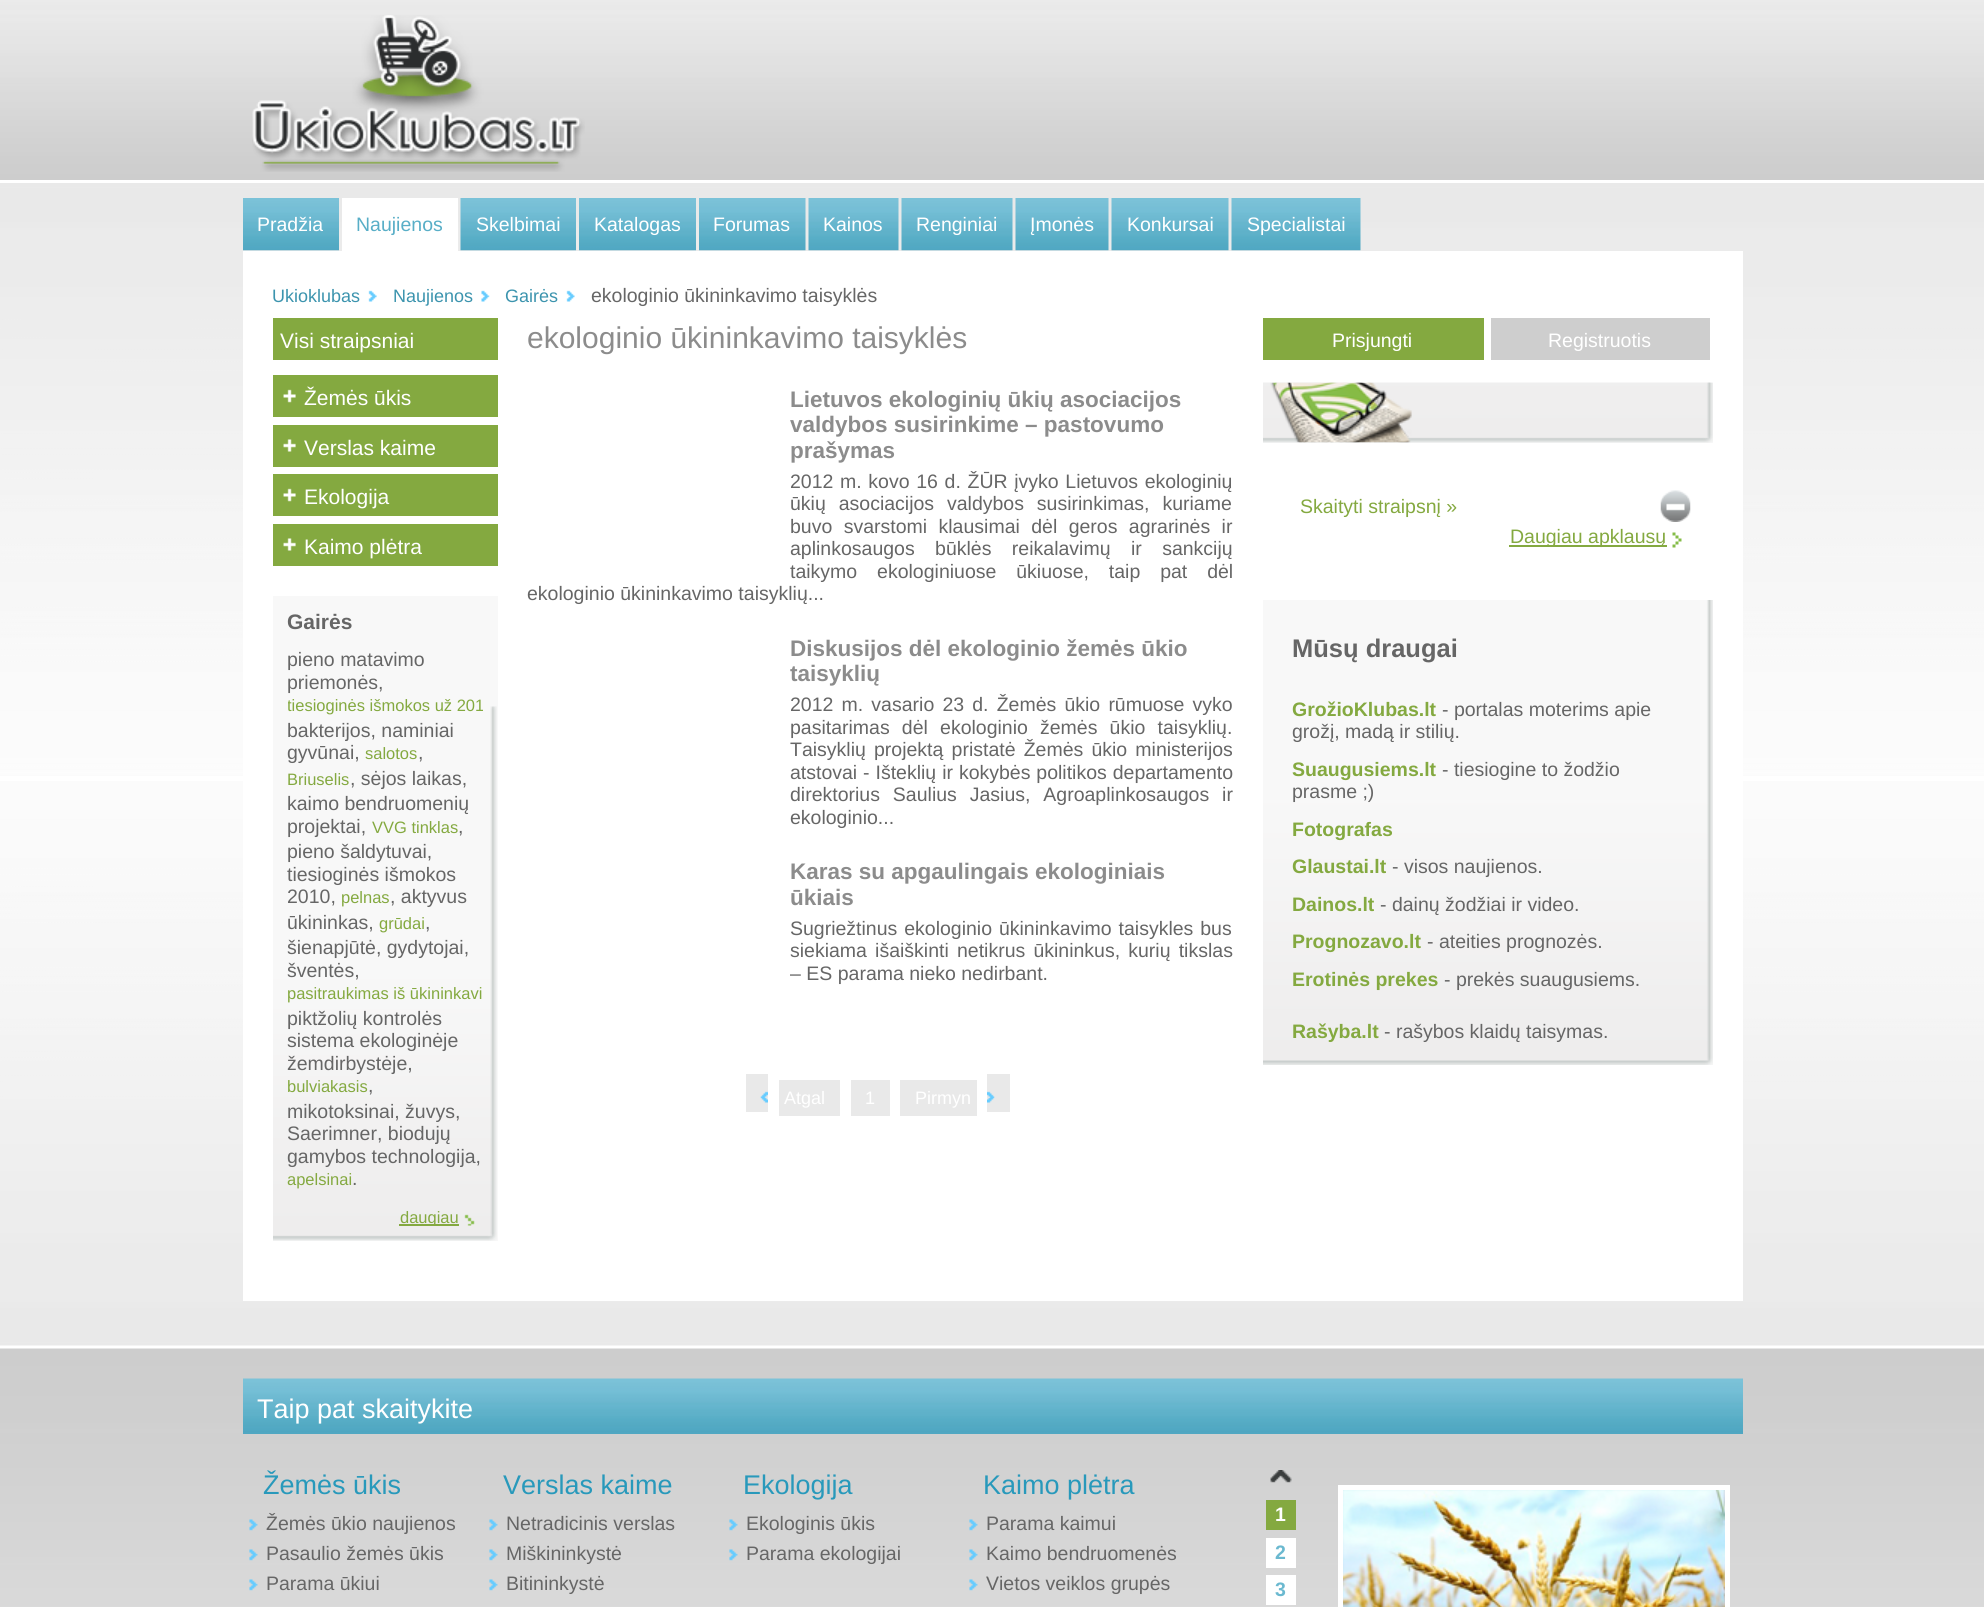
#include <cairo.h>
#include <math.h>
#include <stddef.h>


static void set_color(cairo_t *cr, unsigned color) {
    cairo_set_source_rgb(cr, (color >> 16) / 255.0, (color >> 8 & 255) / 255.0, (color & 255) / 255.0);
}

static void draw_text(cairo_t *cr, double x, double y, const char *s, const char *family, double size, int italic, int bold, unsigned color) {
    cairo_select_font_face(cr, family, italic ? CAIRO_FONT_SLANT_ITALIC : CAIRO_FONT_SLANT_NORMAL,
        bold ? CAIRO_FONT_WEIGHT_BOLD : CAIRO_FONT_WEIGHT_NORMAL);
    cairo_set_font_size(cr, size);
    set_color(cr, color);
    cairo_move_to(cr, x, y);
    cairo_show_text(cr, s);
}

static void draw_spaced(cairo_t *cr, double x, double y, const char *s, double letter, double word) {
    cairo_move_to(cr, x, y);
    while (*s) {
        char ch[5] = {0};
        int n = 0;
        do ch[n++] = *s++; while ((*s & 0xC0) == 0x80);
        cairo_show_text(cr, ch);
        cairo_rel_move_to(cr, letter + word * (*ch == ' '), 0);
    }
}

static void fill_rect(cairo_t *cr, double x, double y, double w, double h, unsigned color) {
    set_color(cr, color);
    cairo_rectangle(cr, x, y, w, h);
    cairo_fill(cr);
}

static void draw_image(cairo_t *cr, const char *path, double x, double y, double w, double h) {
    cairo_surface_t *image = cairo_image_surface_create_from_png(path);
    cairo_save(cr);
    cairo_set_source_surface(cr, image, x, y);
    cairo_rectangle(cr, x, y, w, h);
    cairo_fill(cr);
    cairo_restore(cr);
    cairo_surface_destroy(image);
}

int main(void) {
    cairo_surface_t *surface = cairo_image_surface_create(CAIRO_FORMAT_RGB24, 1984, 1607);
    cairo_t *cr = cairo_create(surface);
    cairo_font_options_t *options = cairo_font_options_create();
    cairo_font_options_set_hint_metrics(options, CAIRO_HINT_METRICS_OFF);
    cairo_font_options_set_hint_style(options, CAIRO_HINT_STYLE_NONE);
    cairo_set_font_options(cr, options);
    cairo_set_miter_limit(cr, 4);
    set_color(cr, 0xFFFFFF);
    cairo_paint(cr);
    draw_image(cr, "assets/img1.png", 0, 0, 1984, 180);
    draw_image(cr, "assets/img2.png", 252, 15, 333, 157);
    draw_image(cr, "assets/img3.png", 0, 183, 1984, 593);
    draw_image(cr, "assets/img4.png", 0, 781, 1984, 565);
    draw_image(cr, "assets/img5.png", 243, 198, 96, 53);
    draw_text(cr, 257, 231, "Pradžia", "Liberation Sans", 19.5, 0, 0, 0xFFFFFF);
    fill_rect(cr, 342, 198, 116, 53, 0xFFFFFF);
    draw_text(cr, 356, 231, "Naujienos", "Liberation Sans", 19.5, 0, 0, 0x58AEC7);
    draw_image(cr, "assets/img6.png", 460, 198, 116, 53);
    draw_text(cr, 476, 231, "Skelbimai", "Liberation Sans", 19.5, 0, 0, 0xFFFFFF);
    draw_image(cr, "assets/img7.png", 579, 198, 117, 53);
    draw_text(cr, 594, 231, "Katalogas", "Liberation Sans", 19.5, 0, 0, 0xFFFFFF);
    draw_image(cr, "assets/img8.png", 699, 198, 107, 53);
    draw_text(cr, 713, 231, "Forumas", "Liberation Sans", 19.5, 0, 0, 0xFFFFFF);
    draw_image(cr, "assets/img9.png", 808, 198, 91, 53);
    draw_text(cr, 823, 231, "Kainos", "Liberation Sans", 19.5, 0, 0, 0xFFFFFF);
    draw_image(cr, "assets/img10.png", 901, 198, 112, 53);
    draw_text(cr, 916, 231, "Renginiai", "Liberation Sans", 19.5, 0, 0, 0xFFFFFF);
    draw_image(cr, "assets/img11.png", 1015, 198, 94, 53);
    draw_text(cr, 1030, 231, "Įmonės", "Liberation Sans", 19.5, 0, 0, 0xFFFFFF);
    draw_image(cr, "assets/img12.png", 1111, 198, 118, 53);
    draw_text(cr, 1127, 231, "Konkursai", "Liberation Sans", 19.5, 0, 0, 0xFFFFFF);
    draw_image(cr, "assets/img13.png", 1231, 198, 130, 53);
    draw_text(cr, 1247, 231, "Specialistai", "Liberation Sans", 19.5, 0, 0, 0xFFFFFF);
    fill_rect(cr, 243, 251, 1500, 1050, 0xFFFFFF);
    draw_text(cr, 272, 302, "Ukioklubas", "Liberation Sans", 18, 0, 0, 0x3C94AE);
    draw_image(cr, "assets/img14.png", 368, 290, 9, 12);
    draw_text(cr, 393, 302, "Naujienos", "Liberation Sans", 18, 0, 0, 0x3C94AE);
    draw_image(cr, "assets/img15.png", 481, 290, 9, 12);
    draw_text(cr, 505, 302, "Gairės", "Liberation Sans", 18, 0, 0, 0x3C94AE);
    draw_image(cr, "assets/img16.png", 566, 290, 9, 12);
    draw_text(cr, 591, 302, "ekologinio ūkininkavimo taisyklės", "Liberation Sans", 19.5, 0, 0, 0x666666);
    fill_rect(cr, 273, 318, 225, 42, 0x84A940);
    draw_text(cr, 280, 348, "Visi straipsniai", "Liberation Sans", 21, 0, 0, 0xFFFFFF);
    fill_rect(cr, 273, 375, 225, 42, 0x84A940);
    draw_image(cr, "assets/img17.png", 283, 389, 13, 14);
    draw_text(cr, 304, 405, "Žemės ūkis", "Liberation Sans", 21, 0, 0, 0xFFFFFF);
    fill_rect(cr, 273, 425, 225, 42, 0x84A940);
    draw_image(cr, "assets/img18.png", 283, 439, 13, 13);
    draw_text(cr, 304, 455, "Verslas kaime", "Liberation Sans", 21, 0, 0, 0xFFFFFF);
    fill_rect(cr, 273, 474, 225, 42, 0x84A940);
    draw_image(cr, "assets/img17.png", 283, 488, 13, 14);
    draw_text(cr, 304, 504, "Ekologija", "Liberation Sans", 21, 0, 0, 0xFFFFFF);
    fill_rect(cr, 273, 524, 225, 42, 0x84A940);
    draw_image(cr, "assets/img18.png", 283, 538, 13, 13);
    draw_text(cr, 304, 554, "Kaimo plėtra", "Liberation Sans", 21, 0, 0, 0xFFFFFF);
    fill_rect(cr, 273, 596, 225, 645, 0xF8F8F8);
    draw_image(cr, "assets/img19.png", 273, 706, 224, 535);
    draw_text(cr, 287, 629, "Gairės", "Liberation Sans", 21, 0, 1, 0x666666);
    draw_text(cr, 287, 666, "pieno matavimo", "Liberation Sans", 19.5, 0, 0, 0x666666);
    draw_text(cr, 287, 689, "priemonės,", "Liberation Sans", 19.5, 0, 0, 0x666666);
    cairo_save(cr);
    cairo_rectangle(cr, 288, 648, 195, 545);
    cairo_clip(cr);
    draw_text(cr, 287, 711, "tiesioginės išmokos už 201", "Liberation Sans", 16.5, 0, 0, 0x84A940);
    cairo_restore(cr);
    draw_text(cr, 287, 737, "bakterijos, naminiai", "Liberation Sans", 19.5, 0, 0, 0x666666);
    draw_text(cr, 287, 759, "gyvūnai,", "Liberation Sans", 19.5, 0, 0, 0x666666);
    draw_text(cr, 365, 759, "salotos", "Liberation Sans", 16.5, 0, 0, 0x84A940);
    draw_text(cr, 418, 759, ",", "Liberation Sans", 19.5, 0, 0, 0x666666);
    draw_text(cr, 287, 785, "Briuselis", "Liberation Sans", 16.5, 0, 0, 0x84A940);
    draw_text(cr, 350, 785, ", sėjos laikas,", "Liberation Sans", 19.5, 0, 0, 0x666666);
    draw_text(cr, 287, 810, "kaimo bendruomenių", "Liberation Sans", 19.5, 0, 0, 0x666666);
    draw_text(cr, 287, 833, "projektai,", "Liberation Sans", 19.5, 0, 0, 0x666666);
    draw_text(cr, 372, 833, "VVG tinklas", "Liberation Sans", 16.5, 0, 0, 0x84A940);
    draw_text(cr, 458, 833, ",", "Liberation Sans", 19.5, 0, 0, 0x666666);
    draw_text(cr, 287, 858, "pieno šaldytuvai,", "Liberation Sans", 19.5, 0, 0, 0x666666);
    draw_text(cr, 287, 881, "tiesioginės išmokos", "Liberation Sans", 19.5, 0, 0, 0x666666);
    draw_text(cr, 287, 903, "2010,", "Liberation Sans", 19.5, 0, 0, 0x666666);
    draw_text(cr, 341, 903, "pelnas", "Liberation Sans", 16.5, 0, 0, 0x84A940);
    draw_text(cr, 390, 903, ", aktyvus", "Liberation Sans", 19.5, 0, 0, 0x666666);
    draw_text(cr, 287, 929, "ūkininkas,", "Liberation Sans", 19.5, 0, 0, 0x666666);
    draw_text(cr, 379, 929, "grūdai", "Liberation Sans", 16.5, 0, 0, 0x84A940);
    draw_text(cr, 425, 929, ",", "Liberation Sans", 19.5, 0, 0, 0x666666);
    draw_text(cr, 287, 954, "šienapjūtė, gydytojai,", "Liberation Sans", 19.5, 0, 0, 0x666666);
    draw_text(cr, 287, 977, "šventės,", "Liberation Sans", 19.5, 0, 0, 0x666666);
    draw_text(cr, 287, 999, "pasitraukimas iš ūkininkavi", "Liberation Sans", 16.5, 0, 0, 0x84A940);
    draw_text(cr, 287, 1025, "piktžolių kontrolės", "Liberation Sans", 19.5, 0, 0, 0x666666);
    draw_text(cr, 287, 1047, "sistema ekologinėje", "Liberation Sans", 19.5, 0, 0, 0x666666);
    draw_text(cr, 287, 1070, "žemdirbystėje,", "Liberation Sans", 19.5, 0, 0, 0x666666);
    draw_text(cr, 287, 1092, "bulviakasis", "Liberation Sans", 16.5, 0, 0, 0x84A940);
    draw_text(cr, 368, 1092, ",", "Liberation Sans", 19.5, 0, 0, 0x666666);
    draw_text(cr, 287, 1118, "mikotoksinai, žuvys,", "Liberation Sans", 19.5, 0, 0, 0x666666);
    draw_text(cr, 287, 1140, "Saerimner, biodujų", "Liberation Sans", 19.5, 0, 0, 0x666666);
    draw_text(cr, 287, 1163, "gamybos technologija,", "Liberation Sans", 19.5, 0, 0, 0x666666);
    draw_text(cr, 287, 1185, "apelsinai", "Liberation Sans", 16.5, 0, 0, 0x84A940);
    draw_text(cr, 352, 1185, ".", "Liberation Sans", 19.5, 0, 0, 0x666666);
    draw_image(cr, "assets/img20.png", 464, 1214, 11, 12);
    fill_rect(cr, 399, 1224, 60, 2, 0x84A940);
    cairo_save(cr);
    cairo_rectangle(cr, 399, 1208, 84, 18);
    cairo_clip(cr);
    draw_text(cr, 400, 1223, "daugiau", "Liberation Sans", 16.5, 0, 0, 0x84A940);
    cairo_restore(cr);
    draw_text(cr, 527, 348, "ekologinio ūkininkavimo taisyklės", "Liberation Sans", 30, 0, 0, 0x8C8C8C);
    draw_text(cr, 790, 407, "Lietuvos ekologinių ūkių asociacijos", "Liberation Sans", 22.5, 0, 1, 0x8C8C8C);
    draw_text(cr, 790, 432, "valdybos susirinkime – pastovumo", "Liberation Sans", 22.5, 0, 1, 0x8C8C8C);
    draw_text(cr, 790, 458, "prašymas", "Liberation Sans", 22.5, 0, 1, 0x8C8C8C);
    cairo_select_font_face(cr, "Liberation Sans", CAIRO_FONT_SLANT_NORMAL, CAIRO_FONT_WEIGHT_NORMAL);
    cairo_set_font_size(cr, 19.5);
    set_color(cr, 0x666666);
    draw_spaced(cr, 790, 488, "2012 m. kovo 16 d. ŽŪR įvyko Lietuvos ekologinių", 0, 1.25);
    draw_spaced(cr, 790, 510, "ūkių asociacijos valdybos susirinkimas, kuriame", 0, 7.5);
    draw_spaced(cr, 790, 533, "buvo svarstomi klausimai dėl geros agrarinės ir", 0, 6);
    draw_spaced(cr, 790, 555, "aplinkosaugos būklės reikalavimų ir sankcijų", 0, 15);
    draw_spaced(cr, 790, 578, "taikymo ekologiniuose ūkiuose, taip pat dėl", 0, 14.5);
    draw_text(cr, 527, 600, "ekologinio ūkininkavimo taisyklių...", "Liberation Sans", 19.5, 0, 0, 0x666666);
    draw_text(cr, 790, 656, "Diskusijos dėl ekologinio žemės ūkio", "Liberation Sans", 22.5, 0, 1, 0x8C8C8C);
    draw_text(cr, 790, 681, "taisyklių", "Liberation Sans", 22.5, 0, 1, 0x8C8C8C);
    cairo_select_font_face(cr, "Liberation Sans", CAIRO_FONT_SLANT_NORMAL, CAIRO_FONT_WEIGHT_NORMAL);
    cairo_set_font_size(cr, 19.5);
    set_color(cr, 0x666666);
    draw_spaced(cr, 790, 711, "2012 m. vasario 23 d. Žemės ūkio rūmuose vyko", 0, 2.75);
    draw_spaced(cr, 790, 734, "pasitarimas dėl ekologinio žemės ūkio taisyklių.", 0, 6.75);
    draw_spaced(cr, 790, 756, "Taisyklių projektą pristatė Žemės ūkio ministerijos", 0, 2.75);
    draw_spaced(cr, 790, 779, "atstovai - Išteklių ir kokybės politikos departamento", 0, 0.5);
    draw_spaced(cr, 790, 801, "direktorius Saulius Jasius, Agroaplinkosaugos ir", 0, 7.5);
    draw_text(cr, 790, 824, "ekologinio...", "Liberation Sans", 19.5, 0, 0, 0x666666);
    draw_text(cr, 790, 879, "Karas su apgaulingais ekologiniais", "Liberation Sans", 22.5, 0, 1, 0x8C8C8C);
    draw_text(cr, 790, 905, "ūkiais", "Liberation Sans", 22.5, 0, 1, 0x8C8C8C);
    cairo_select_font_face(cr, "Liberation Sans", CAIRO_FONT_SLANT_NORMAL, CAIRO_FONT_WEIGHT_NORMAL);
    cairo_set_font_size(cr, 19.5);
    set_color(cr, 0x666666);
    draw_spaced(cr, 790, 935, "Sugriežtinus ekologinio ūkininkavimo taisykles bus", 0, 1.5);
    draw_spaced(cr, 790, 957, "siekiama išaiškinti netikrus ūkininkus, kurių tikslas", 0, 2.75);
    draw_text(cr, 790, 980, "– ES parama nieko nedirbant.", "Liberation Sans", 19.5, 0, 0, 0x666666);
    fill_rect(cr, 746, 1074, 22, 38, 0xE9E9E9);
    draw_image(cr, "assets/img21.png", 760, 1091, 8, 12);
    fill_rect(cr, 779, 1080, 61, 36, 0xE9E9E9);
    draw_text(cr, 784, 1104, "Atgal", "Liberation Sans", 18, 0, 0, 0xFFFFFF);
    fill_rect(cr, 851, 1080, 39, 36, 0xE9E9E9);
    draw_text(cr, 865, 1104, "1", "Liberation Sans", 18, 0, 0, 0xFFFFFF);
    fill_rect(cr, 900, 1080, 77, 36, 0xE9E9E9);
    draw_text(cr, 915, 1104, "Pirmyn", "Liberation Sans", 18, 0, 0, 0xFFFFFF);
    fill_rect(cr, 987, 1074, 23, 38, 0xE9E9E9);
    draw_image(cr, "assets/img22.png", 987, 1091, 8, 12);
    fill_rect(cr, 1263, 318, 221, 42, 0x84A940);
    draw_text(cr, 1332, 347, "Prisjungti", "Liberation Sans", 19.5, 0, 0, 0xFFFFFF);
    fill_rect(cr, 1491, 318, 219, 42, 0xCECECE);
    draw_text(cr, 1548, 347, "Registruotis", "Liberation Sans", 19.5, 0, 0, 0xFFFFFF);
    fill_rect(cr, 1263, 383, 450, 60, 0xF8F8F8);
    draw_image(cr, "assets/img23.png", 1263, 382, 450, 61);
    draw_image(cr, "assets/img24.png", 1270, 382, 142, 61);
    draw_text(cr, 1300, 513, "Skaityti straipsnį »", "Liberation Sans", 19.5, 0, 0, 0x84A940);
    draw_image(cr, "assets/img25.png", 1660, 490, 31, 32);
    draw_image(cr, "assets/img26.png", 1672, 532, 10, 16);
    fill_rect(cr, 1509, 545, 158, 2, 0x84A940);
    draw_text(cr, 1510, 543, "Daugiau apklausų", "Liberation Sans", 19.5, 0, 0, 0x84A940);
    fill_rect(cr, 1263, 600, 450, 465, 0xF8F8F8);
    draw_image(cr, "assets/img27.png", 1263, 600, 450, 465);
    draw_text(cr, 1292, 657, "Mūsų draugai", "Liberation Sans", 25.5, 0, 1, 0x666666);
    draw_text(cr, 1292, 716, "GrožioKlubas.lt", "Liberation Sans", 19.5, 0, 1, 0x84A940);
    draw_text(cr, 1442, 716, "- portalas moterims apie", "Liberation Sans", 19.5, 0, 0, 0x666666);
    draw_text(cr, 1292, 738, "grožį, madą ir stilių.", "Liberation Sans", 19.5, 0, 0, 0x666666);
    draw_text(cr, 1292, 776, "Suaugusiems.lt", "Liberation Sans", 19.5, 0, 1, 0x84A940);
    draw_text(cr, 1442, 776, "- tiesiogine to žodžio", "Liberation Sans", 19.5, 0, 0, 0x666666);
    draw_text(cr, 1292, 798, "prasme ;)", "Liberation Sans", 19.5, 0, 0, 0x666666);
    draw_text(cr, 1292, 836, "Fotografas", "Liberation Sans", 19.5, 0, 1, 0x84A940);
    draw_text(cr, 1292, 873, "Glaustai.lt", "Liberation Sans", 19.5, 0, 1, 0x84A940);
    draw_text(cr, 1392, 873, "- visos naujienos.", "Liberation Sans", 19.5, 0, 0, 0x666666);
    draw_text(cr, 1292, 911, "Dainos.lt", "Liberation Sans", 19.5, 0, 1, 0x84A940);
    draw_text(cr, 1380, 911, "- dainų žodžiai ir video.", "Liberation Sans", 19.5, 0, 0, 0x666666);
    draw_text(cr, 1292, 948, "Prognozavo.lt", "Liberation Sans", 19.5, 0, 1, 0x84A940);
    draw_text(cr, 1427, 948, "- ateities prognozės.", "Liberation Sans", 19.5, 0, 0, 0x666666);
    draw_text(cr, 1292, 986, "Erotinės prekes", "Liberation Sans", 19.5, 0, 1, 0x84A940);
    draw_text(cr, 1444, 986, "- prekės suaugusiems.", "Liberation Sans", 19.5, 0, 0, 0x666666);
    draw_text(cr, 1292, 1038, "Rašyba.lt", "Liberation Sans", 19.5, 0, 1, 0x84A940);
    draw_text(cr, 1384, 1038, "- rašybos klaidų taisymas.", "Liberation Sans", 19.5, 0, 0, 0x666666);
    draw_image(cr, "assets/img28.png", 0, 1348, 1984, 259);
    draw_image(cr, "assets/img29.png", 243, 1378, 1500, 56);
    draw_text(cr, 257, 1418, "Taip pat skaitykite", "Liberation Sans", 27, 0, 0, 0xFFFFFF);
    draw_text(cr, 263, 1494, "Žemės ūkis", "Liberation Sans", 27, 0, 0, 0x2899BB);
    draw_image(cr, "assets/img30.png", 249, 1519, 9, 12);
    draw_text(cr, 266, 1530, "Žemės ūkio naujienos", "Liberation Sans", 19.5, 0, 0, 0x666666);
    draw_image(cr, "assets/img31.png", 249, 1549, 9, 12);
    draw_text(cr, 266, 1560, "Pasaulio žemės ūkis", "Liberation Sans", 19.5, 0, 0, 0x666666);
    draw_image(cr, "assets/img32.png", 249, 1579, 9, 12);
    draw_text(cr, 266, 1590, "Parama ūkiui", "Liberation Sans", 19.5, 0, 0, 0x666666);
    draw_text(cr, 503, 1494, "Verslas kaime", "Liberation Sans", 27, 0, 0, 0x2899BB);
    draw_image(cr, "assets/img30.png", 489, 1519, 9, 12);
    draw_text(cr, 506, 1530, "Netradicinis verslas", "Liberation Sans", 19.5, 0, 0, 0x666666);
    draw_image(cr, "assets/img31.png", 489, 1549, 9, 12);
    draw_text(cr, 506, 1560, "Miškininkystė", "Liberation Sans", 19.5, 0, 0, 0x666666);
    draw_image(cr, "assets/img32.png", 489, 1579, 9, 12);
    draw_text(cr, 506, 1590, "Bitininkystė", "Liberation Sans", 19.5, 0, 0, 0x666666);
    draw_text(cr, 743, 1494, "Ekologija", "Liberation Sans", 27, 0, 0, 0x2899BB);
    draw_image(cr, "assets/img30.png", 729, 1519, 9, 12);
    draw_text(cr, 746, 1530, "Ekologinis ūkis", "Liberation Sans", 19.5, 0, 0, 0x666666);
    draw_image(cr, "assets/img31.png", 729, 1549, 9, 12);
    draw_text(cr, 746, 1560, "Parama ekologijai", "Liberation Sans", 19.5, 0, 0, 0x666666);
    draw_text(cr, 983, 1494, "Kaimo plėtra", "Liberation Sans", 27, 0, 0, 0x2899BB);
    draw_image(cr, "assets/img30.png", 969, 1519, 9, 12);
    draw_text(cr, 986, 1530, "Parama kaimui", "Liberation Sans", 19.5, 0, 0, 0x666666);
    draw_image(cr, "assets/img31.png", 969, 1549, 9, 12);
    draw_text(cr, 986, 1560, "Kaimo bendruomenės", "Liberation Sans", 19.5, 0, 0, 0x666666);
    draw_image(cr, "assets/img32.png", 969, 1579, 9, 12);
    draw_text(cr, 986, 1590, "Vietos veiklos grupės", "Liberation Sans", 19.5, 0, 0, 0x666666);
    draw_image(cr, "assets/img33.png", 1270, 1470, 22, 13);
    fill_rect(cr, 1266, 1500, 30, 30, 0x84A940);
    draw_text(cr, 1275, 1521, "1", "Liberation Sans", 19.5, 0, 1, 0xFFFFFF);
    fill_rect(cr, 1266, 1538, 30, 30, 0xFFFFFF);
    draw_text(cr, 1275, 1559, "2", "Liberation Sans", 19.5, 0, 1, 0x6BB9D0);
    fill_rect(cr, 1266, 1575, 30, 30, 0xFFFFFF);
    draw_text(cr, 1275, 1596, "3", "Liberation Sans", 19.5, 0, 1, 0x6BB9D0);
    draw_image(cr, "assets/img34.png", 1343, 1490, 382, 117);
    cairo_rectangle(cr, 1340.5, 1487.5, 387, 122);
    set_color(cr, 0xFFFFFF);
    cairo_set_line_width(cr, 5);
    cairo_stroke(cr);
    cairo_surface_write_to_png(surface, "output.png");
    cairo_font_options_destroy(options);
    cairo_destroy(cr);
    cairo_surface_destroy(surface);
    return 0;
}
